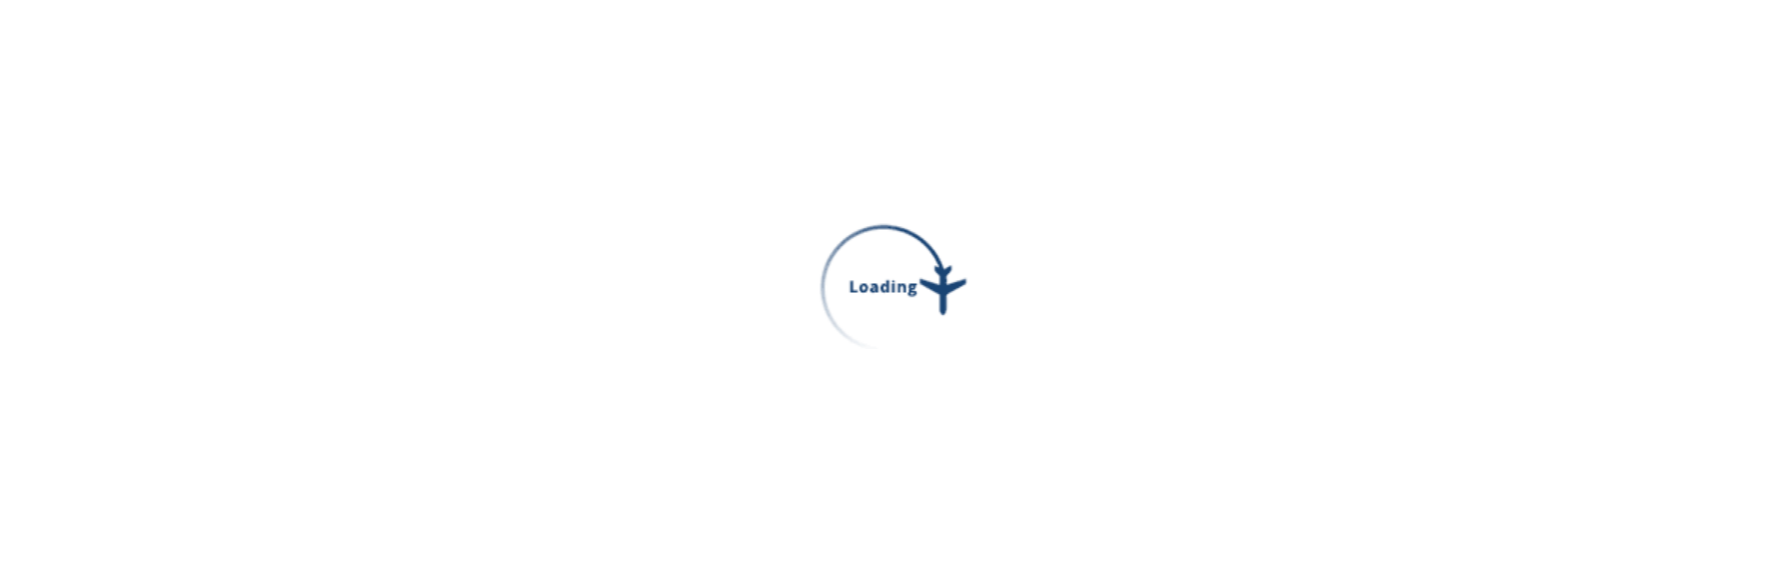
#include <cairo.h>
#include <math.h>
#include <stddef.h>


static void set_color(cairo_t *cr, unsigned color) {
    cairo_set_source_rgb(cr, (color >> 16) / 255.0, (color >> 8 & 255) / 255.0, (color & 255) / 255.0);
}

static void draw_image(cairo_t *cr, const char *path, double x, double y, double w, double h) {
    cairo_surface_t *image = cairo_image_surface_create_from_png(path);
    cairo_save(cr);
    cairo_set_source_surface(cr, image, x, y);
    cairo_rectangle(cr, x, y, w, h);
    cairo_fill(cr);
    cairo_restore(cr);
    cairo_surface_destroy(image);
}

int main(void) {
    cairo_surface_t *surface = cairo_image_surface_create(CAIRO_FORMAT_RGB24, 1766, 575);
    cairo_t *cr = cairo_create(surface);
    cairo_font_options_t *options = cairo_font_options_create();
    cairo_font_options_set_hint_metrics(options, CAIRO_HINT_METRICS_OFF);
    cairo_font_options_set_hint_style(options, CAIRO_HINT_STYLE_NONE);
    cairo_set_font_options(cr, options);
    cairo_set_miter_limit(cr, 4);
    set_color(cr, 0xFFFFFF);
    cairo_paint(cr);
    draw_image(cr, "assets/img1.png", 819, 223, 149, 126);
    cairo_surface_write_to_png(surface, "output.png");
    cairo_font_options_destroy(options);
    cairo_destroy(cr);
    cairo_surface_destroy(surface);
    return 0;
}
